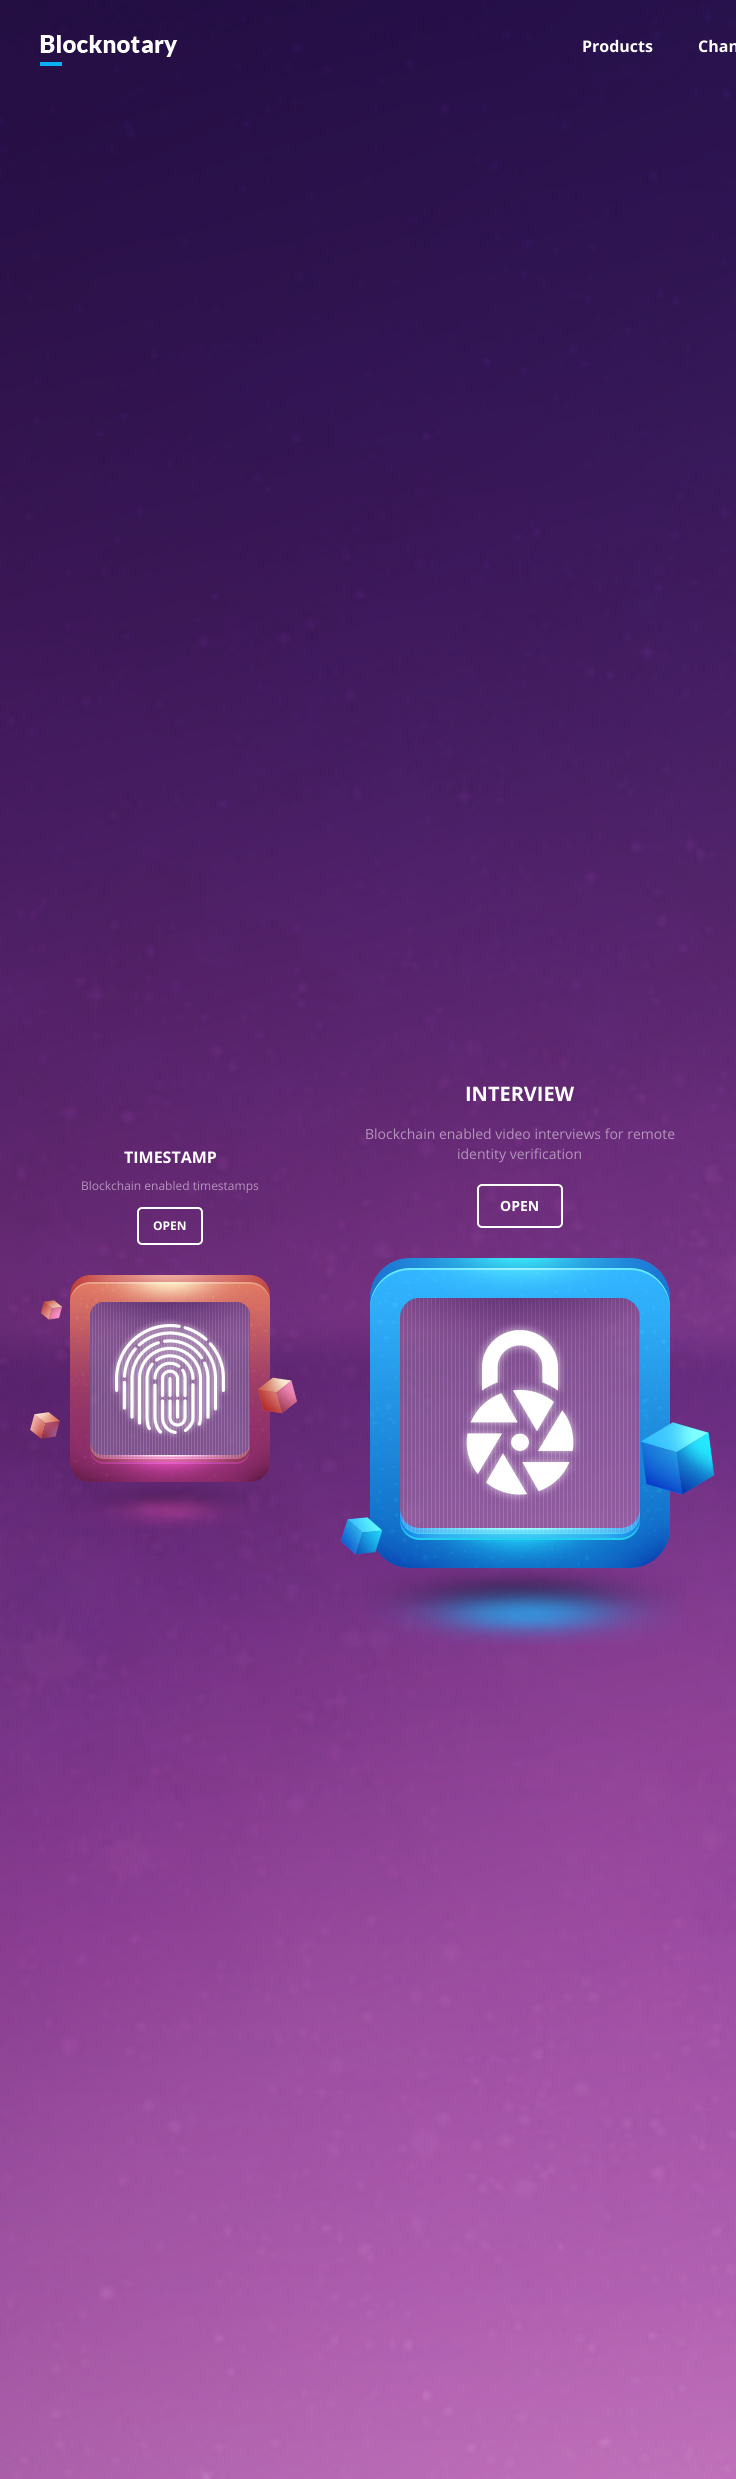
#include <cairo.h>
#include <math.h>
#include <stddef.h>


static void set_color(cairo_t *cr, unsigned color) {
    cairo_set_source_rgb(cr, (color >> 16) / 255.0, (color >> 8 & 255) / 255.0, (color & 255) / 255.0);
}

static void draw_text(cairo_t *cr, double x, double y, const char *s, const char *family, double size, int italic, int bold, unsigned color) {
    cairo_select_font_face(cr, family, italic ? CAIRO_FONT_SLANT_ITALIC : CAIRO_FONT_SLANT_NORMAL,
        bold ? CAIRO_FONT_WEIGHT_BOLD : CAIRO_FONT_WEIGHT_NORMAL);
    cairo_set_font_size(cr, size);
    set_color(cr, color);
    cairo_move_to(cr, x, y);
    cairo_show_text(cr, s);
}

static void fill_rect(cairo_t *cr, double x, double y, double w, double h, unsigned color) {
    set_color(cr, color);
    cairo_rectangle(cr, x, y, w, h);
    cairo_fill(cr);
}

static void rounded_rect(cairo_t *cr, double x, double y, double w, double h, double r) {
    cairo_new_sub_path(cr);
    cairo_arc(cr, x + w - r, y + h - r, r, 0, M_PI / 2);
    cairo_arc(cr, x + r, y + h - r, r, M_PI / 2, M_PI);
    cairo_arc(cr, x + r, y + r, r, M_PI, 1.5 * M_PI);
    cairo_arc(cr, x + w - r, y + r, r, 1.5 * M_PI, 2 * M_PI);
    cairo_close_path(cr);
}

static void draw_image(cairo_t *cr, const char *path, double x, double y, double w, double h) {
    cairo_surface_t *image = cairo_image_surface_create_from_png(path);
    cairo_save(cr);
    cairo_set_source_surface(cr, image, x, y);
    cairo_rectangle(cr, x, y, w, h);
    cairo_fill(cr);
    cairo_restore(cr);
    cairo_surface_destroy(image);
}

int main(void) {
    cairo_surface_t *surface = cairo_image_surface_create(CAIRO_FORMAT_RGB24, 736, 2479);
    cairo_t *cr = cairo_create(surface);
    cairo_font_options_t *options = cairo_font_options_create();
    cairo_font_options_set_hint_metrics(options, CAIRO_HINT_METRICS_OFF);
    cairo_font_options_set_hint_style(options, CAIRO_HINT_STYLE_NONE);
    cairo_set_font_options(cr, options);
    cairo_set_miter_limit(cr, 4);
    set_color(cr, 0xFFFFFF);
    cairo_paint(cr);
    draw_image(cr, "assets/img1.png", 0, 0, 736, 2479);
    draw_image(cr, "assets/img2.png", 40, 35, 138, 22);
    fill_rect(cr, 40, 62, 22, 4, 0x09AFF5);
    draw_text(cr, 582, 52, "Products", "Open Sans", 16, 0, 1, 0xFFFFFF);
    draw_text(cr, 698, 52, "Chan", "Open Sans", 16, 0, 1, 0xFFFFFF);
    draw_text(cr, 124, 1163, "TIMESTAMP", "Open Sans", 16, 0, 1, 0xFFFFFF);
    draw_text(cr, 81, 1190, "Blockchain enabled timestamps", "Open Sans", 12, 0, 0, 0xB294B9);
    rounded_rect(cr, 138, 1208, 64, 36, 4);
    set_color(cr, 0xFFFFFF);
    cairo_stroke(cr);
    draw_text(cr, 153, 1230, "OPEN", "Open Sans", 12, 0, 1, 0xFFFFFF);
    draw_image(cr, "assets/img3.png", 70, 1275, 200, 254);
    draw_image(cr, "assets/img4.png", 41, 1300, 22, 20);
    draw_image(cr, "assets/img5.png", 258, 1377, 39, 37);
    draw_image(cr, "assets/img6.png", 30, 1412, 30, 27);
    draw_text(cr, 465, 1101, "INTERVIEW", "Open Sans", 20, 0, 1, 0xFFFFFF);
    draw_text(cr, 365, 1139, "Blockchain enabled video interviews for remote", "Open Sans", 14, 0, 0, 0xB294B9);
    draw_text(cr, 457, 1159, "identity verification", "Open Sans", 14, 0, 0, 0xB294B9);
    rounded_rect(cr, 478, 1185, 84, 42, 4);
    set_color(cr, 0xFFFFFF);
    cairo_stroke(cr);
    draw_text(cr, 500, 1211, "OPEN", "Open Sans", 14, 0, 1, 0xFFFFFF);
    draw_image(cr, "assets/img7.png", 363, 1258, 322, 387);
    draw_image(cr, "assets/img8.png", 641, 1422, 74, 73);
    draw_image(cr, "assets/img9.png", 340, 1517, 43, 38);
    cairo_surface_write_to_png(surface, "output.png");
    cairo_font_options_destroy(options);
    cairo_destroy(cr);
    cairo_surface_destroy(surface);
    return 0;
}
